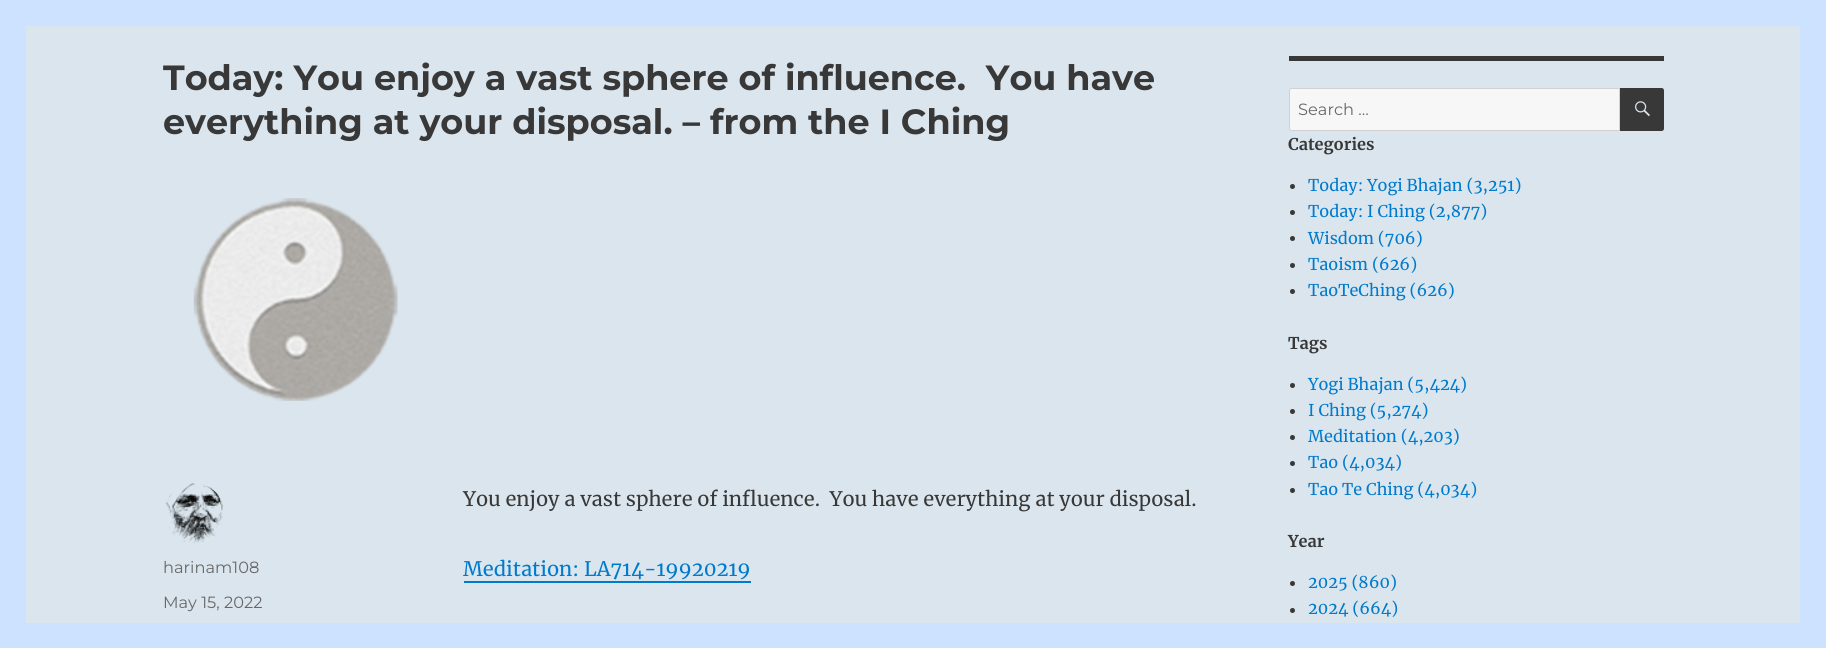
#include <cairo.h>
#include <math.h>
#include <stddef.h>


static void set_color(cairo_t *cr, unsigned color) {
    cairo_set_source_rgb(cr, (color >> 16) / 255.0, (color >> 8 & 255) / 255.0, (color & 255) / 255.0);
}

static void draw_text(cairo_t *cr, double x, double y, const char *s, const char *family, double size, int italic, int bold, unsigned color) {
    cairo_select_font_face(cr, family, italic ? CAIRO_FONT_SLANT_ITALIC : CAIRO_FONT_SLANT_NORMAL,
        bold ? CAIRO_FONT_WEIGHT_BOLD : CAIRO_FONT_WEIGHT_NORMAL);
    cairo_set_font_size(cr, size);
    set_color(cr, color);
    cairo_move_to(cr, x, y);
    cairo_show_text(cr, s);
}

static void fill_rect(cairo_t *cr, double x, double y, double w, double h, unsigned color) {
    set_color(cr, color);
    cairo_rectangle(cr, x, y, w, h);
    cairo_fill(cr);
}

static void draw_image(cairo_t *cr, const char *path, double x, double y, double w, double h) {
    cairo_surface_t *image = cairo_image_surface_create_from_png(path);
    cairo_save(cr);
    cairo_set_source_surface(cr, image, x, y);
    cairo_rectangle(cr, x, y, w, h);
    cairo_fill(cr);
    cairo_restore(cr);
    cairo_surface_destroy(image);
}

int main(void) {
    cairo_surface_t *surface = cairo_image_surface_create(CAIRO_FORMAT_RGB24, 1826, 648);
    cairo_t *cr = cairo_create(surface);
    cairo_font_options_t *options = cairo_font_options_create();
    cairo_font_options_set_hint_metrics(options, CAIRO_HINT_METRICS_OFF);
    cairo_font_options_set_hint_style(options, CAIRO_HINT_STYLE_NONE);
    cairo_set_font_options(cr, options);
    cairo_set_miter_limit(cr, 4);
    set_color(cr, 0xCCE2FF);
    cairo_paint(cr);
    fill_rect(cr, 26, 26, 1774, 597, 0xDAE5ED);
    draw_text(cr, 163, 90, "Today: You enjoy a vast sphere of influence.  You have", "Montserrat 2 Thin", 35, 0, 0, 0x383838);
    draw_text(cr, 163, 134, "everything at your disposal. – from the I Ching", "Montserrat 2 Thin", 35, 0, 0, 0x383838);
    draw_image(cr, "assets/img1.png", 193, 198, 205, 203);
    draw_text(cr, 463, 506, "You enjoy a vast sphere of influence.  You have everything at your disposal.", "Merriweather", 20, 0, 0, 0x383838);
    draw_text(cr, 463, 576, "Meditation: LA714-19920219", "Merriweather", 20, 0, 0, 0x007ACC);
    fill_rect(cr, 464, 581, 287, 2, 0x007ACC);
    draw_image(cr, "assets/img2.png", 166, 483, 57, 61);
    draw_text(cr, 163, 573, "harinam108", "Montserrat Thin", 16.25, 0, 0, 0x686868);
    draw_text(cr, 163, 608, "May 15, 2022", "Montserrat Thin", 16.25, 0, 0, 0x686868);
    fill_rect(cr, 1289, 56, 375, 5, 0x383838);
    set_color(cr, 0xF7F7F7);
    cairo_new_path(cr);
    cairo_move_to(cr, 1291.5, 88);
    cairo_line_to(cr, 1620, 88);
    cairo_line_to(cr, 1620, 131);
    cairo_line_to(cr, 1291.5, 131);
    cairo_curve_to(cr, 1290, 131, 1289, 130, 1289, 128.5);
    cairo_line_to(cr, 1289, 90.5);
    cairo_curve_to(cr, 1289, 89, 1290, 88, 1291.5, 88);
    cairo_close_path(cr);
    cairo_fill(cr);
    cairo_new_path(cr);
    cairo_move_to(cr, 1291.5, 88.5);
    cairo_line_to(cr, 1619.5, 88.5);
    cairo_line_to(cr, 1619.5, 130.5);
    cairo_line_to(cr, 1291.5, 130.5);
    cairo_curve_to(cr, 1290.5, 130.5, 1289.5, 129.5, 1289.5, 128.5);
    cairo_line_to(cr, 1289.5, 90.5);
    cairo_curve_to(cr, 1289.5, 89.5, 1290.5, 88.5, 1291.5, 88.5);
    cairo_close_path(cr);
    cairo_set_source_rgba(cr, 0.22, 0.22, 0.22, 0.2);
    cairo_set_line_width(cr, 1);
    cairo_stroke(cr);
    draw_text(cr, 1298, 115, "Search …", "Montserrat Thin", 16.25, 0, 0, 0x686868);
    set_color(cr, 0x383838);
    cairo_new_path(cr);
    cairo_move_to(cr, 1620, 88);
    cairo_line_to(cr, 1661.5, 88);
    cairo_curve_to(cr, 1663, 88, 1664, 89, 1664, 90.5);
    cairo_line_to(cr, 1664, 128.5);
    cairo_curve_to(cr, 1664, 130, 1663, 131, 1661.5, 131);
    cairo_line_to(cr, 1620, 131);
    cairo_close_path(cr);
    cairo_fill(cr);
    draw_image(cr, "assets/img3.png", 1635, 101, 15, 16);
    draw_text(cr, 1288, 150, "Categories", "Merriweather", 16.25, 0, 1, 0x383838);
    cairo_new_path(cr);
    cairo_arc(cr, 1292.5, 186.5, 2.5, 0, 2 * M_PI);
    cairo_fill(cr);
    draw_text(cr, 1308, 191, "Today: Yogi Bhajan (3,251)", "Merriweather", 16.25, 0, 0, 0x007ACC);
    set_color(cr, 0x383838);
    cairo_new_path(cr);
    cairo_arc(cr, 1292.5, 212.5, 2.5, 0, 2 * M_PI);
    cairo_fill(cr);
    draw_text(cr, 1308, 217, "Today: I Ching (2,877)", "Merriweather", 16.25, 0, 0, 0x007ACC);
    set_color(cr, 0x383838);
    cairo_new_path(cr);
    cairo_arc(cr, 1292.5, 238.5, 2.5, 0, 2 * M_PI);
    cairo_fill(cr);
    draw_text(cr, 1308, 244, "Wisdom (706)", "Merriweather", 16.25, 0, 0, 0x007ACC);
    set_color(cr, 0x383838);
    cairo_new_path(cr);
    cairo_arc(cr, 1292.5, 265.5, 2.5, 0, 2 * M_PI);
    cairo_fill(cr);
    draw_text(cr, 1308, 270, "Taoism (626)", "Merriweather", 16.25, 0, 0, 0x007ACC);
    set_color(cr, 0x383838);
    cairo_new_path(cr);
    cairo_arc(cr, 1292.5, 291.5, 2.5, 0, 2 * M_PI);
    cairo_fill(cr);
    draw_text(cr, 1308, 296, "TaoTeChing (626)", "Merriweather", 16.25, 0, 0, 0x007ACC);
    draw_text(cr, 1288, 349, "Tags", "Merriweather", 16.25, 0, 1, 0x383838);
    cairo_new_path(cr);
    cairo_arc(cr, 1292.5, 385.5, 2.5, 0, 2 * M_PI);
    cairo_fill(cr);
    draw_text(cr, 1308, 390, "Yogi Bhajan (5,424)", "Merriweather", 16.25, 0, 0, 0x007ACC);
    set_color(cr, 0x383838);
    cairo_new_path(cr);
    cairo_arc(cr, 1292.5, 411.5, 2.5, 0, 2 * M_PI);
    cairo_fill(cr);
    draw_text(cr, 1308, 416, "I Ching (5,274)", "Merriweather", 16.25, 0, 0, 0x007ACC);
    set_color(cr, 0x383838);
    cairo_new_path(cr);
    cairo_arc(cr, 1292.5, 437.5, 2.5, 0, 2 * M_PI);
    cairo_fill(cr);
    draw_text(cr, 1308, 442, "Meditation (4,203)", "Merriweather", 16.25, 0, 0, 0x007ACC);
    set_color(cr, 0x383838);
    cairo_new_path(cr);
    cairo_arc(cr, 1292.5, 463.5, 2.5, 0, 2 * M_PI);
    cairo_fill(cr);
    draw_text(cr, 1308, 468, "Tao (4,034)", "Merriweather", 16.25, 0, 0, 0x007ACC);
    set_color(cr, 0x383838);
    cairo_new_path(cr);
    cairo_arc(cr, 1292.5, 490.5, 2.5, 0, 2 * M_PI);
    cairo_fill(cr);
    draw_text(cr, 1308, 495, "Tao Te Ching (4,034)", "Merriweather", 16.25, 0, 0, 0x007ACC);
    draw_text(cr, 1288, 547, "Year", "Merriweather", 16.25, 0, 1, 0x383838);
    cairo_new_path(cr);
    cairo_arc(cr, 1292.5, 583.5, 2.5, 0, 2 * M_PI);
    cairo_fill(cr);
    draw_text(cr, 1308, 588, "2025 (860)", "Merriweather", 16.25, 0, 0, 0x007ACC);
    set_color(cr, 0x383838);
    cairo_new_path(cr);
    cairo_arc(cr, 1292.5, 610.5, 2.5, 0, 2 * M_PI);
    cairo_fill(cr);
    draw_text(cr, 1308, 614, "2024 (664)", "Merriweather", 16.25, 0, 0, 0x007ACC);
    cairo_surface_write_to_png(surface, "output.png");
    cairo_font_options_destroy(options);
    cairo_destroy(cr);
    cairo_surface_destroy(surface);
    return 0;
}
